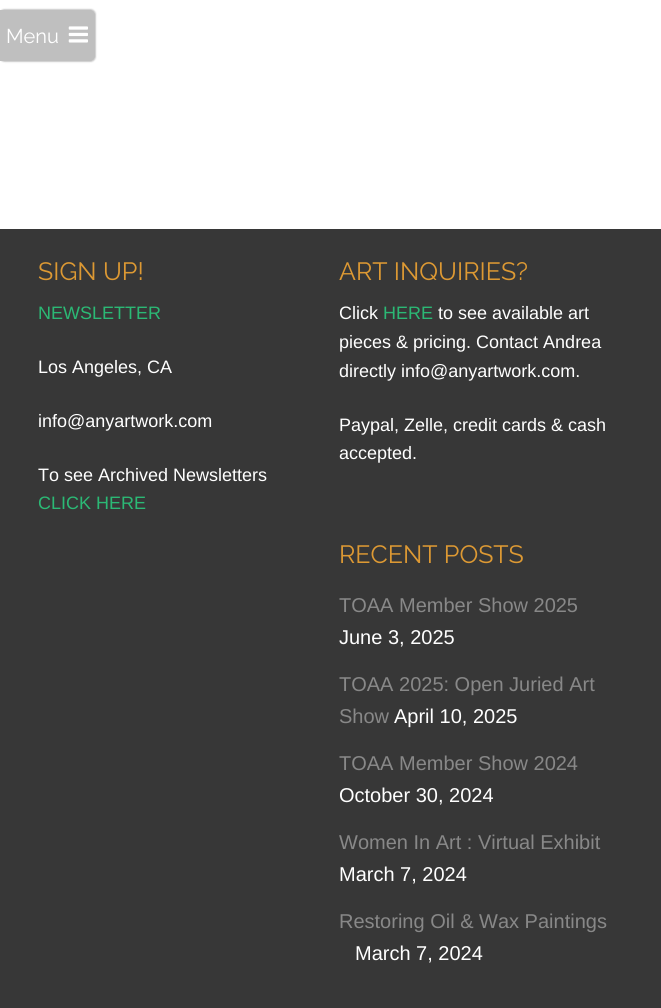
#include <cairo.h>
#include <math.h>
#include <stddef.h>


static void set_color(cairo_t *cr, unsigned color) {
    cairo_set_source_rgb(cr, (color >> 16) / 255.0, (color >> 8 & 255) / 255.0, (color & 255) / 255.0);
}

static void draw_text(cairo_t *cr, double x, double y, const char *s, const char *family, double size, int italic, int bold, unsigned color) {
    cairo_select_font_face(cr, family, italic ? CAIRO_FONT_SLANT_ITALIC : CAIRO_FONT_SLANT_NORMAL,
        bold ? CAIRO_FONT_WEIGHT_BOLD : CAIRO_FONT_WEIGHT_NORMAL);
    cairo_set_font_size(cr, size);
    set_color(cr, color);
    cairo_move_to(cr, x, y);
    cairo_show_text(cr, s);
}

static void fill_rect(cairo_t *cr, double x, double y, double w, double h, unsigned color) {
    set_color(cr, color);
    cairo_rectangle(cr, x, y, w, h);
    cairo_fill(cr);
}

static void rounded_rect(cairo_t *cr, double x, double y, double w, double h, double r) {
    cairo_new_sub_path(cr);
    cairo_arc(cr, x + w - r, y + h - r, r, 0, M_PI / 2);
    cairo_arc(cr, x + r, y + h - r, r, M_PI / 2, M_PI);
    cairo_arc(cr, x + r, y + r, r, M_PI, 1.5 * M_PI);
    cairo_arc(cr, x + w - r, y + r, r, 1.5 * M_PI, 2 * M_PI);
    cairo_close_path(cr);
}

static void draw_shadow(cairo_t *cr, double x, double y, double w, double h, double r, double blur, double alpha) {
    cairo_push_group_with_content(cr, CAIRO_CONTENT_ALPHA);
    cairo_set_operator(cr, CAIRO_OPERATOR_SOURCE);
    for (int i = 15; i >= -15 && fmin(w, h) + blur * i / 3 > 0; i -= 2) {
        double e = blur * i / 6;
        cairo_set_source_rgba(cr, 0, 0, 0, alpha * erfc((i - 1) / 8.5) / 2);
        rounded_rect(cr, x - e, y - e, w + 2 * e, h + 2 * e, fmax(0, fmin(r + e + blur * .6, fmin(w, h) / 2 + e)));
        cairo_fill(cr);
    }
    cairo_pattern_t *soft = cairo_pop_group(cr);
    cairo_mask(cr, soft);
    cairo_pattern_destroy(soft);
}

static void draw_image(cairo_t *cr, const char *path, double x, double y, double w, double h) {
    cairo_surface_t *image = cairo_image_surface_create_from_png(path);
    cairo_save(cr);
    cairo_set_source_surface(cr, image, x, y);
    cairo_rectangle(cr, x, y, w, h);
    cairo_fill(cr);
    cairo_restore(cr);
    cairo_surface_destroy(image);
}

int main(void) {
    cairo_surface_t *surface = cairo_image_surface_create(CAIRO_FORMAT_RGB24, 661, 1008);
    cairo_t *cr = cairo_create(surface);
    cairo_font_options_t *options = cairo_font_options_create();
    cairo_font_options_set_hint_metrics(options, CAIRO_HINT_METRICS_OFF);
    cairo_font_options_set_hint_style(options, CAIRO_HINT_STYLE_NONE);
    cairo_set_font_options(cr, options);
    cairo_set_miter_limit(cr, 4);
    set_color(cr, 0xFFFFFF);
    cairo_paint(cr);
    cairo_save(cr);
    cairo_set_fill_rule(cr, CAIRO_FILL_RULE_EVEN_ODD);
    cairo_new_path(cr);
    cairo_move_to(cr, 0, 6);
    cairo_line_to(cr, 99, 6);
    cairo_line_to(cr, 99, 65);
    cairo_line_to(cr, 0, 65);
    cairo_close_path(cr);
    cairo_move_to(cr, 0, 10);
    cairo_line_to(cr, 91, 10);
    cairo_curve_to(cr, 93, 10, 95, 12, 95, 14);
    cairo_line_to(cr, 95, 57);
    cairo_curve_to(cr, 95, 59, 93, 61, 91, 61);
    cairo_line_to(cr, 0, 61);
    cairo_close_path(cr);
    cairo_clip(cr);
    set_color(cr, 0x323232);
    draw_shadow(cr, 0, 10, 95, 51, 4, 1, 0.64);
    cairo_restore(cr);
    cairo_set_source_rgba(cr, 0.157, 0.157, 0.157, 0.3);
    cairo_new_path(cr);
    cairo_move_to(cr, 0, 10);
    cairo_line_to(cr, 91, 10);
    cairo_curve_to(cr, 93, 10, 95, 12, 95, 14);
    cairo_line_to(cr, 95, 57);
    cairo_curve_to(cr, 95, 59, 93, 61, 91, 61);
    cairo_line_to(cr, 0, 61);
    cairo_close_path(cr);
    cairo_fill(cr);
    draw_text(cr, 6, 43, "Menu", "Raleway", 20, 0, 0, 0xFFFFFF);
    draw_image(cr, "assets/img1.png", 68, 26, 20, 17);
    fill_rect(cr, 0, 229, 661, 779, 0x373737);
    draw_text(cr, 38, 280, "SIGN UP!", "Raleway", 25, 0, 0, 0xDD9933);
    draw_text(cr, 38, 319, "NEWSLETTER", "Liberation Sans", 18, 0, 0, 0x2BB975);
    draw_text(cr, 38, 373, "Los Angeles, CA", "Liberation Sans", 18, 0, 0, 0xFFFFFF);
    draw_text(cr, 38, 427, "info@anyartwork.com", "Liberation Sans", 18, 0, 0, 0xFFFFFF);
    draw_text(cr, 38, 481, "To see Archived Newsletters", "Liberation Sans", 18, 0, 0, 0xFFFFFF);
    draw_text(cr, 38, 509, "CLICK HERE", "Liberation Sans", 18, 0, 0, 0x2BB975);
    draw_text(cr, 339, 280, "ART INQUIRIES?", "Raleway", 25, 0, 0, 0xDD9933);
    draw_text(cr, 339, 319, "Click", "Liberation Sans", 18, 0, 0, 0xFFFFFF);
    draw_text(cr, 383, 319, "HERE", "Liberation Sans", 18, 0, 0, 0x2BB975);
    draw_text(cr, 438, 319, "to see available art", "Liberation Sans", 18, 0, 0, 0xFFFFFF);
    draw_text(cr, 339, 348, "pieces & pricing. Contact Andrea", "Liberation Sans", 18, 0, 0, 0xFFFFFF);
    draw_text(cr, 339, 377, "directly info@anyartwork.com.", "Liberation Sans", 18, 0, 0, 0xFFFFFF);
    draw_text(cr, 339, 431, "Paypal, Zelle, credit cards & cash", "Liberation Sans", 18, 0, 0, 0xFFFFFF);
    draw_text(cr, 339, 459, "accepted.", "Liberation Sans", 18, 0, 0, 0xFFFFFF);
    draw_text(cr, 339, 563, "RECENT POSTS", "Raleway", 25, 0, 0, 0xDD9933);
    draw_text(cr, 339, 612, "TOAA Member Show 2025", "Liberation Sans", 20, 0, 0, 0x888888);
    draw_text(cr, 339, 644, "June 3, 2025", "Liberation Sans", 20, 0, 0, 0xFFFFFF);
    draw_text(cr, 339, 691, "TOAA 2025: Open Juried Art", "Liberation Sans", 20, 0, 0, 0x888888);
    draw_text(cr, 339, 723, "Show", "Liberation Sans", 20, 0, 0, 0x888888);
    draw_text(cr, 394, 723, "April 10, 2025", "Liberation Sans", 20, 0, 0, 0xFFFFFF);
    draw_text(cr, 339, 770, "TOAA Member Show 2024", "Liberation Sans", 20, 0, 0, 0x888888);
    draw_text(cr, 339, 802, "October 30, 2024", "Liberation Sans", 20, 0, 0, 0xFFFFFF);
    draw_text(cr, 339, 849, "Women In Art : Virtual Exhibit", "Liberation Sans", 20, 0, 0, 0x888888);
    draw_text(cr, 339, 881, "March 7, 2024", "Liberation Sans", 20, 0, 0, 0xFFFFFF);
    draw_text(cr, 339, 928, "Restoring Oil & Wax Paintings", "Liberation Sans", 20, 0, 0, 0x888888);
    draw_text(cr, 355, 960, "March 7, 2024", "Liberation Sans", 20, 0, 0, 0xFFFFFF);
    cairo_surface_write_to_png(surface, "output.png");
    cairo_font_options_destroy(options);
    cairo_destroy(cr);
    cairo_surface_destroy(surface);
    return 0;
}
